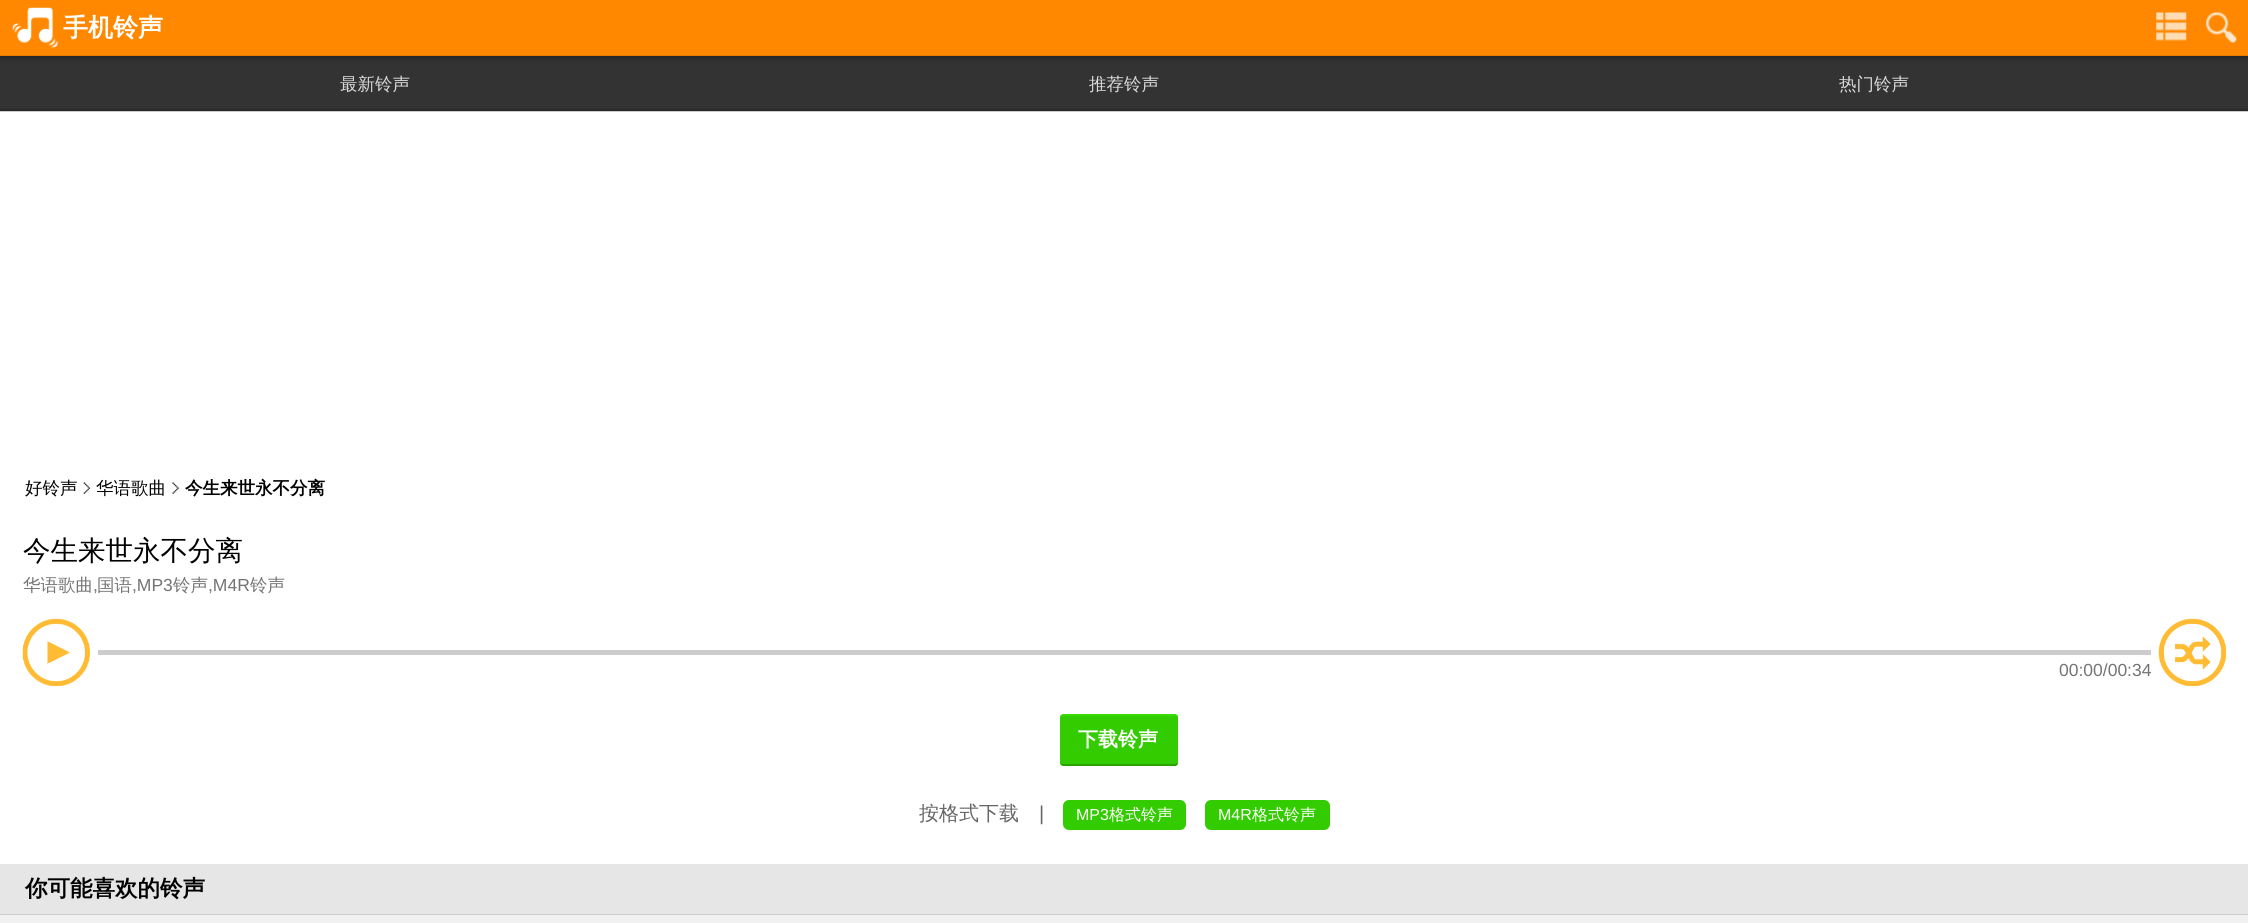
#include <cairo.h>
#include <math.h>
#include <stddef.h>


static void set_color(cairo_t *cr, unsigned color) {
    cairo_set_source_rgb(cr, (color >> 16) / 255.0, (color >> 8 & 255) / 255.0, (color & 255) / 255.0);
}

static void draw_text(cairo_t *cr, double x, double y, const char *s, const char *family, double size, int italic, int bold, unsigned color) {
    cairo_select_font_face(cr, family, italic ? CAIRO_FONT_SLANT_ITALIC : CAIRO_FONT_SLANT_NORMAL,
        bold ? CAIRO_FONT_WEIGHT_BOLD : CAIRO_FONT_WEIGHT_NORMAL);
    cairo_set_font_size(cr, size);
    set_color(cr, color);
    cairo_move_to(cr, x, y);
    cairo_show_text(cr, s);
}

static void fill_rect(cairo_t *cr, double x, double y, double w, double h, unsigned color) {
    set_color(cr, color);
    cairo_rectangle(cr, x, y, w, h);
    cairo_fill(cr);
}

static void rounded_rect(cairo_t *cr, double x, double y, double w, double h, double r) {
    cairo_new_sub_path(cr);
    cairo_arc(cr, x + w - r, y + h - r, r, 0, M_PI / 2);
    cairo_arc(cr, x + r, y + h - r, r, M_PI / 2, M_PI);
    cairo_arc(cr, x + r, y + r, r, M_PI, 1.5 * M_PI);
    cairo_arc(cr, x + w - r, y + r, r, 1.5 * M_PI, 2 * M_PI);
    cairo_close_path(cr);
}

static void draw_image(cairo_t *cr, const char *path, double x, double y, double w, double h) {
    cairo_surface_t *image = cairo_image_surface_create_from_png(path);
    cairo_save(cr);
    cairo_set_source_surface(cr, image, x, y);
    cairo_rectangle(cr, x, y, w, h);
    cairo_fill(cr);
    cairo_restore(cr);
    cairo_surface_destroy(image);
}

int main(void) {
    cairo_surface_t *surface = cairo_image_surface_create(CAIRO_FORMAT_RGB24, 2248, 923);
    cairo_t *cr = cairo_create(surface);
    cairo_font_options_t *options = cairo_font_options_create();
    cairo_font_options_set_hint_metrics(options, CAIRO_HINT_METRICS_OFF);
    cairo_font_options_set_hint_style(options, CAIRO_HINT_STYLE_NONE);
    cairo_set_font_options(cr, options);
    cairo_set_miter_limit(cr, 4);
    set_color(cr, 0xFFFFFF);
    cairo_paint(cr);
    fill_rect(cr, 0, 0, 2248, 55, 0xFF8800);
    fill_rect(cr, 0, 55, 2248, 1, 0xE57A00);
    draw_image(cr, "assets/img1.png", 12, 7, 46, 41);
    draw_text(cr, 63, 36, "手机铃声", "WenQuanYi Zen Hei", 25, 0, 1, 0xFFFFFF);
    draw_image(cr, "assets/img2.png", 2156, 12, 31, 29);
    draw_image(cr, "assets/img3.png", 2206, 12, 31, 31);
    draw_image(cr, "assets/img4.png", 0, 56, 2248, 55);
    fill_rect(cr, 0, 111, 2248, 1, 0xCCCCCC);
    draw_text(cr, 340, 90, "最新铃声", "WenQuanYi Zen Hei Medium", 17.5, 0, 0, 0xDADADA);
    draw_text(cr, 1089, 90, "推荐铃声", "WenQuanYi Zen Hei Medium", 17.5, 0, 0, 0xDADADA);
    draw_text(cr, 1839, 90, "热门铃声", "WenQuanYi Zen Hei Medium", 17.5, 0, 0, 0xDADADA);
    draw_text(cr, 25, 494, "好铃声", "WenQuanYi Zen Hei Medium", 17.5, 0, 0, 0x000000);
    draw_image(cr, "assets/img5.png", 83, 482, 7, 12);
    draw_text(cr, 96, 494, "华语歌曲", "WenQuanYi Zen Hei Medium", 17.5, 0, 0, 0x000000);
    draw_image(cr, "assets/img6.png", 172, 482, 7, 12);
    draw_text(cr, 185, 494, "今生来世永不分离", "WenQuanYi Zen Hei", 17.5, 0, 1, 0x000000);
    draw_text(cr, 23, 560, "今生来世永不分离", "WenQuanYi Zen Hei Medium", 27.5, 0, 0, 0x000000);
    draw_text(cr, 23, 591, "华语歌曲", "WenQuanYi Zen Hei Medium", 17.5, 0, 0, 0x747474);
    draw_text(cr, 93, 591, ",", "Liberation Sans", 17.5, 0, 0, 0x747474);
    draw_text(cr, 97, 591, "国语", "WenQuanYi Zen Hei Medium", 17.5, 0, 0, 0x747474);
    draw_text(cr, 132, 591, ",MP3", "Liberation Sans", 17.5, 0, 0, 0x747474);
    draw_text(cr, 173, 591, "铃声", "WenQuanYi Zen Hei Medium", 17.5, 0, 0, 0x747474);
    draw_text(cr, 208, 591, ",M4R", "Liberation Sans", 17.5, 0, 0, 0x747474);
    draw_text(cr, 250, 591, "铃声", "WenQuanYi Zen Hei Medium", 17.5, 0, 0, 0x747474);
    draw_image(cr, "assets/img7.png", 22, 618, 68, 69);
    fill_rect(cr, 98, 650, 2053, 5, 0xCCCCCC);
    draw_text(cr, 2059, 676, "00:00/00:34", "Liberation Sans", 17.5, 0, 0, 0x747474);
    draw_image(cr, "assets/img8.png", 2158, 618, 69, 69);
    set_color(cr, 0x33CC00);
    rounded_rect(cr, 1060, 714, 118, 52, 4);
    cairo_fill(cr);
    set_color(cr, 0x37DC00);
    cairo_new_path(cr);
    cairo_move_to(cr, 1064, 714);
    cairo_line_to(cr, 1174, 714);
    cairo_curve_to(cr, 1176, 714, 1178, 715, 1178, 717);
    cairo_line_to(cr, 1175, 716);
    cairo_line_to(cr, 1064, 716);
    cairo_curve_to(cr, 1063, 716, 1060, 716, 1060, 718);
    cairo_curve_to(cr, 1060, 715, 1062, 714, 1064, 714);
    cairo_close_path(cr);
    cairo_fill(cr);
    set_color(cr, 0x29A300);
    cairo_new_path(cr);
    cairo_move_to(cr, 1178, 763);
    cairo_line_to(cr, 1178, 764);
    cairo_curve_to(cr, 1177, 766, 1175, 766, 1174, 766);
    cairo_line_to(cr, 1064, 766);
    cairo_curve_to(cr, 1062, 766, 1060, 765, 1060, 762);
    cairo_curve_to(cr, 1060, 764, 1063, 764, 1064, 764);
    cairo_line_to(cr, 1175, 764);
    cairo_close_path(cr);
    cairo_fill(cr);
    draw_text(cr, 1078, 746, "下载铃声", "WenQuanYi Zen Hei", 20, 0, 1, 0xFFFFFF);
    draw_text(cr, 919, 820, "按格式下载", "WenQuanYi Zen Hei Medium", 20, 0, 0, 0x666666);
    draw_text(cr, 1039, 820, "|", "Liberation Sans", 20, 0, 0, 0x666666);
    set_color(cr, 0x33CC00);
    rounded_rect(cr, 1063, 800, 123, 30, 6);
    cairo_fill(cr);
    draw_text(cr, 1076, 820, "MP3", "Liberation Sans", 16, 0, 0, 0xFFFFFF);
    draw_text(cr, 1109, 820, "格式铃声", "WenQuanYi Zen Hei Medium", 16, 0, 0, 0xFFFFFF);
    set_color(cr, 0x33CC00);
    rounded_rect(cr, 1205, 800, 125, 30, 6);
    cairo_fill(cr);
    draw_text(cr, 1218, 820, "M4R", "Liberation Sans", 16, 0, 0, 0xFFFFFF);
    draw_text(cr, 1252, 820, "格式铃声", "WenQuanYi Zen Hei Medium", 16, 0, 0, 0xFFFFFF);
    fill_rect(cr, 0, 864, 2248, 50, 0xE6E6E6);
    fill_rect(cr, 0, 914, 2248, 1, 0xCCCCCC);
    draw_text(cr, 25, 896, "你可能喜欢的铃声", "WenQuanYi Zen Hei", 22.5, 0, 1, 0x000000);
    fill_rect(cr, 0, 915, 2248, 8, 0xF1F1F1);
    cairo_surface_write_to_png(surface, "output.png");
    cairo_font_options_destroy(options);
    cairo_destroy(cr);
    cairo_surface_destroy(surface);
    return 0;
}
